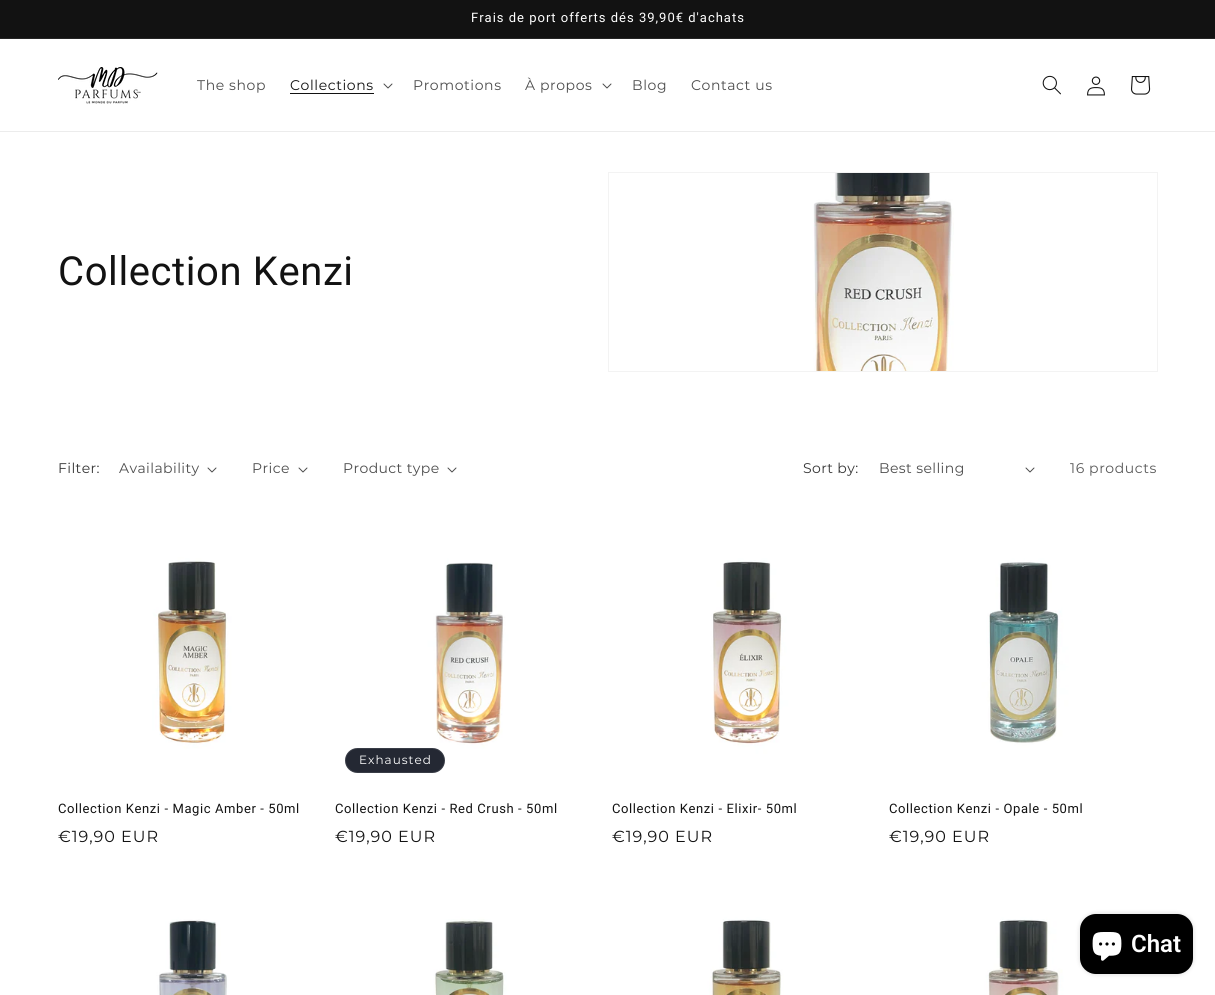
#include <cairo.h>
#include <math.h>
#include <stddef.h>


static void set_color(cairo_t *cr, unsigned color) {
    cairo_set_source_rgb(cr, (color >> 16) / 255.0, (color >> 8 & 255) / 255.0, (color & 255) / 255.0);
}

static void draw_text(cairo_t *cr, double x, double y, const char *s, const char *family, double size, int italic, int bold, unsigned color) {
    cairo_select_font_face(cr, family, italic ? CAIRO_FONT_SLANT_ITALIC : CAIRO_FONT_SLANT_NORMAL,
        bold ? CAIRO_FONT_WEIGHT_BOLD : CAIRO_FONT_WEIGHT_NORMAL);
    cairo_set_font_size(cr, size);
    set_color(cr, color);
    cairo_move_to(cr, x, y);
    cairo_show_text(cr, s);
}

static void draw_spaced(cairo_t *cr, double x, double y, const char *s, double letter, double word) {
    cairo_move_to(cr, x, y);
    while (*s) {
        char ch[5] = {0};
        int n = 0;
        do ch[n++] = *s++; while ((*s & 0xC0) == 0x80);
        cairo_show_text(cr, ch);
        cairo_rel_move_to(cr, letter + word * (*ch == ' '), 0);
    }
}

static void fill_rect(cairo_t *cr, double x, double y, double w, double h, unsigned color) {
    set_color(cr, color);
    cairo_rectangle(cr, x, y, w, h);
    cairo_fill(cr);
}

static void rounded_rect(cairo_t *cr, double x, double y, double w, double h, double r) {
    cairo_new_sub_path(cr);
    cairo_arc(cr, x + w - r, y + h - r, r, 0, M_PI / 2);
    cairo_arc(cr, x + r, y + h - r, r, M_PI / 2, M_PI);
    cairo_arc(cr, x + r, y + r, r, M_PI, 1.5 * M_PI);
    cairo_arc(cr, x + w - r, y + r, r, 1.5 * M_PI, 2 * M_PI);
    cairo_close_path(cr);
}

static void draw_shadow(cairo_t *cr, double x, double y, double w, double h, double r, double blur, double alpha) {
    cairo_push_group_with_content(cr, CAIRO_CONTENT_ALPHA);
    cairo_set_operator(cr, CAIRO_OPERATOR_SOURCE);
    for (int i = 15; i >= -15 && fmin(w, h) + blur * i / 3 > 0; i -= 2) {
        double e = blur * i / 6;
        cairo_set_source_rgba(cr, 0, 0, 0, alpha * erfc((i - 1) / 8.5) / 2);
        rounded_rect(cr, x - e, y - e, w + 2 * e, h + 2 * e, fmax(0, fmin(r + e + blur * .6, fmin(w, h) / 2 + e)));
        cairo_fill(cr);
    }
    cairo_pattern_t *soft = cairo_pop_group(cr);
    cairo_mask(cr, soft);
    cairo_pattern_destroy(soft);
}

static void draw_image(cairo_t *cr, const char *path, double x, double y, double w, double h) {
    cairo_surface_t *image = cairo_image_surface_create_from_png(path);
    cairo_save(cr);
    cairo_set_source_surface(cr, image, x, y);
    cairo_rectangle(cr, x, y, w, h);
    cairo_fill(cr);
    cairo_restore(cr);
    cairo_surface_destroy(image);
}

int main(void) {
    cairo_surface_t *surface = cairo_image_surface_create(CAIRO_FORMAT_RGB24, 1215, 995);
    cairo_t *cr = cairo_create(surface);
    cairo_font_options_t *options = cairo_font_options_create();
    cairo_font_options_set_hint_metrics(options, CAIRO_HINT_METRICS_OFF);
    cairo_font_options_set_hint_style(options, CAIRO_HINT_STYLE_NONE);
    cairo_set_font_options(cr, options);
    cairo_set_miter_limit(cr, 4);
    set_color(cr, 0xFFFFFF);
    cairo_paint(cr);
    fill_rect(cr, 0, 0, 1215, 38, 0x121212);
    fill_rect(cr, 0, 38, 1215, 1, 0x252525);
    cairo_select_font_face(cr, "Roboto", CAIRO_FONT_SLANT_NORMAL, CAIRO_FONT_WEIGHT_NORMAL);
    cairo_set_font_size(cr, 13);
    set_color(cr, 0xFFFFFF);
    draw_spaced(cr, 471, 22, "Frais de port offerts dés 39,90€ d'achats", 1, 0);
    fill_rect(cr, 0, 131, 1215, 1, 0xECECEC);
    draw_image(cr, "assets/img1.png", 58, 67, 100, 37);
    cairo_select_font_face(cr, "Montserrat", CAIRO_FONT_SLANT_NORMAL, CAIRO_FONT_WEIGHT_NORMAL);
    cairo_set_font_size(cr, 14);
    set_color(cr, 0x4D4D4D);
    draw_spaced(cr, 197, 90, "The shop", 0.6, 0);
    set_color(cr, 0x121212);
    draw_spaced(cr, 290, 90, "Collections", 0.6, 0);
    fill_rect(cr, 290, 93, 84, 1, 0x121212);
    draw_image(cr, "assets/img2.png", 383, 83, 10, 6);
    set_color(cr, 0x4D4D4D);
    draw_spaced(cr, 413, 90, "Promotions", 0.6, 0);
    draw_spaced(cr, 525, 90, "À propos", 0.6, 0);
    draw_image(cr, "assets/img2.png", 602, 83, 10, 6);
    draw_spaced(cr, 632, 90, "Blog", 0.6, 0);
    draw_spaced(cr, 691, 90, "Contact us", 0.6, 0);
    draw_image(cr, "assets/img3.png", 1042, 75, 19, 20);
    draw_image(cr, "assets/img4.png", 1087, 76, 18, 20);
    draw_image(cr, "assets/img5.png", 1131, 76, 20, 19);
    cairo_select_font_face(cr, "Roboto", CAIRO_FONT_SLANT_NORMAL, CAIRO_FONT_WEIGHT_NORMAL);
    cairo_set_font_size(cr, 40);
    set_color(cr, 0x121212);
    draw_spaced(cr, 58, 285, "Collection Kenzi", 0.6, 0);
    cairo_rectangle(cr, 608.5, 172.5, 549, 199);
    set_color(cr, 0xF3F3F3);
    cairo_set_line_width(cr, 1);
    cairo_stroke(cr);
    draw_image(cr, "assets/img6.png", 813, 173, 141, 198);
    cairo_select_font_face(cr, "Montserrat", CAIRO_FONT_SLANT_NORMAL, CAIRO_FONT_WEIGHT_NORMAL);
    cairo_set_font_size(cr, 14);
    set_color(cr, 0x363636);
    draw_spaced(cr, 58, 473, "Filter:", 0.4, 0);
    set_color(cr, 0x4D4D4D);
    draw_spaced(cr, 119, 473, "Availability", 0.4, 0);
    draw_image(cr, "assets/img2.png", 207, 467, 10, 6);
    draw_spaced(cr, 252, 473, "Price", 0.4, 0);
    draw_image(cr, "assets/img2.png", 298, 467, 10, 6);
    draw_spaced(cr, 343, 473, "Product type", 0.4, 0);
    draw_image(cr, "assets/img2.png", 447, 467, 10, 6);
    set_color(cr, 0x363636);
    draw_spaced(cr, 803, 473, "Sort by:", 0.4, 0);
    set_color(cr, 0x4D4D4D);
    draw_spaced(cr, 879, 473, "Best selling", 0.4, 0);
    draw_image(cr, "assets/img2.png", 1025, 467, 10, 6);
    set_color(cr, 0x595959);
    draw_spaced(cr, 1070, 473, "16 products", 0.6, 0);
    draw_image(cr, "assets/img7.png", 58, 515, 269, 269);
    cairo_select_font_face(cr, "Roboto", CAIRO_FONT_SLANT_NORMAL, CAIRO_FONT_WEIGHT_NORMAL);
    cairo_set_font_size(cr, 13);
    set_color(cr, 0x121212);
    draw_spaced(cr, 58, 813, "Collection Kenzi - Magic Amber - 50ml", 0.6, 0);
    cairo_select_font_face(cr, "Montserrat", CAIRO_FONT_SLANT_NORMAL, CAIRO_FONT_WEIGHT_NORMAL);
    cairo_set_font_size(cr, 16);
    draw_spaced(cr, 58, 842, "€19,90 EUR", 1, 0);
    draw_image(cr, "assets/img8.png", 335, 515, 269, 269);
    set_color(cr, 0x242833);
    rounded_rect(cr, 345, 748, 100, 25, 12.5);
    cairo_fill(cr);
    rounded_rect(cr, 345.5, 748.5, 99, 24, 12);
    cairo_set_source_rgba(cr, 1, 1, 1, 0.1);
    cairo_stroke(cr);
    cairo_set_font_size(cr, 12);
    set_color(cr, 0xFFFFFF);
    draw_spaced(cr, 359, 764, "Exhausted", 1, 0);
    cairo_select_font_face(cr, "Roboto", CAIRO_FONT_SLANT_NORMAL, CAIRO_FONT_WEIGHT_NORMAL);
    cairo_set_font_size(cr, 13);
    set_color(cr, 0x121212);
    draw_spaced(cr, 335, 813, "Collection Kenzi - Red Crush - 50ml", 0.6, 0);
    cairo_select_font_face(cr, "Montserrat", CAIRO_FONT_SLANT_NORMAL, CAIRO_FONT_WEIGHT_NORMAL);
    cairo_set_font_size(cr, 16);
    draw_spaced(cr, 335, 842, "€19,90 EUR", 1, 0);
    draw_image(cr, "assets/img9.png", 612, 515, 269, 269);
    cairo_select_font_face(cr, "Roboto", CAIRO_FONT_SLANT_NORMAL, CAIRO_FONT_WEIGHT_NORMAL);
    cairo_set_font_size(cr, 13);
    draw_spaced(cr, 612, 813, "Collection Kenzi - Elixir- 50ml", 0.6, 0);
    cairo_select_font_face(cr, "Montserrat", CAIRO_FONT_SLANT_NORMAL, CAIRO_FONT_WEIGHT_NORMAL);
    cairo_set_font_size(cr, 16);
    draw_spaced(cr, 612, 842, "€19,90 EUR", 1, 0);
    draw_image(cr, "assets/img10.png", 889, 515, 269, 269);
    cairo_select_font_face(cr, "Roboto", CAIRO_FONT_SLANT_NORMAL, CAIRO_FONT_WEIGHT_NORMAL);
    cairo_set_font_size(cr, 13);
    draw_spaced(cr, 889, 813, "Collection Kenzi - Opale - 50ml", 0.6, 0);
    cairo_select_font_face(cr, "Montserrat", CAIRO_FONT_SLANT_NORMAL, CAIRO_FONT_WEIGHT_NORMAL);
    cairo_set_font_size(cr, 16);
    draw_spaced(cr, 889, 842, "€19,90 EUR", 1, 0);
    draw_image(cr, "assets/img11.png", 58, 874, 269, 121);
    draw_image(cr, "assets/img12.png", 335, 874, 269, 121);
    draw_image(cr, "assets/img13.png", 612, 874, 269, 121);
    draw_image(cr, "assets/img14.png", 889, 874, 269, 121);
    set_color(cr, 0x000000);
    draw_shadow(cr, 1080, 914, 113, 60, 16, 2.5, 0.15);
    set_color(cr, 0x000000);
    rounded_rect(cr, 1080, 914, 113, 60, 16);
    cairo_fill(cr);
    draw_image(cr, "assets/img15.png", 1092, 932, 30, 29);
    draw_text(cr, 1131, 952, "Chat", "Roboto SemiBold", 24, 0, 0, 0xFFFFFF);
    cairo_surface_write_to_png(surface, "output.png");
    cairo_font_options_destroy(options);
    cairo_destroy(cr);
    cairo_surface_destroy(surface);
    return 0;
}
